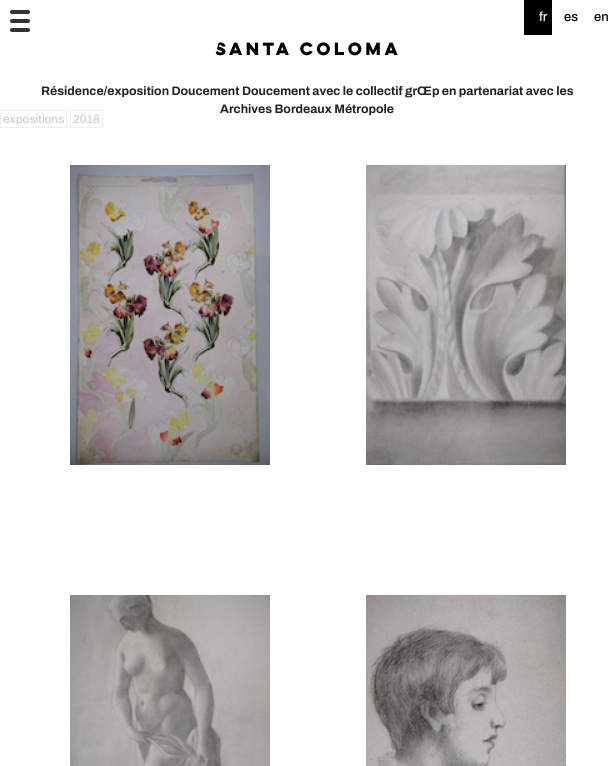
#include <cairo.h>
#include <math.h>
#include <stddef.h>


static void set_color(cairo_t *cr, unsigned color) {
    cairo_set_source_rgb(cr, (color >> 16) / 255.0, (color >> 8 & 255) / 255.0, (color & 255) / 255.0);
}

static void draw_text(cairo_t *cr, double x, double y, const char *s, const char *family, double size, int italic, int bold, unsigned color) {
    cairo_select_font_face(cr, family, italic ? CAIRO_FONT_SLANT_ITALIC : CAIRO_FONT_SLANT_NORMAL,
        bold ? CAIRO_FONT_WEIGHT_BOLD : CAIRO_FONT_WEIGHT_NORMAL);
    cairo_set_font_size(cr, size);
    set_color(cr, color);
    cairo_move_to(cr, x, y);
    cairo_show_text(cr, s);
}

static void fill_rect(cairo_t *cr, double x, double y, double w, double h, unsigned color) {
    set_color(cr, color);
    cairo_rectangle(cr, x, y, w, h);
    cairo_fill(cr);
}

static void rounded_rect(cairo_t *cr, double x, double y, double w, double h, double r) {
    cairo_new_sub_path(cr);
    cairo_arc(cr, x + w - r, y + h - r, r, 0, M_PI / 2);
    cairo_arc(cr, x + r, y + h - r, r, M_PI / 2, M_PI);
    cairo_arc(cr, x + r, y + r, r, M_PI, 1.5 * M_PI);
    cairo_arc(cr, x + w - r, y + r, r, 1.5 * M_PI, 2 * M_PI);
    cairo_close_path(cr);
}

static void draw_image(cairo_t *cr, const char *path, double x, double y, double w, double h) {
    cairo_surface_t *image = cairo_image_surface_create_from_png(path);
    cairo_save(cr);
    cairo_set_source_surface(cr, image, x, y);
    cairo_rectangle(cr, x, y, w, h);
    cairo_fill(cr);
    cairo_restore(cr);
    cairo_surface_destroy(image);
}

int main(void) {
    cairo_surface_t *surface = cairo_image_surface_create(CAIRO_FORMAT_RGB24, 614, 766);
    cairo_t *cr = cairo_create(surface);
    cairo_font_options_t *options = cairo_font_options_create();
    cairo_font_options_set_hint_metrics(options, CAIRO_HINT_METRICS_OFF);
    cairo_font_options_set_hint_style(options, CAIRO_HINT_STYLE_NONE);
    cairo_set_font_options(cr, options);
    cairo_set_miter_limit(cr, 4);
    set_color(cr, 0xFFFFFF);
    cairo_paint(cr);
    set_color(cr, 0x333333);
    rounded_rect(cr, 10, 10, 20, 4, 2);
    cairo_fill(cr);
    rounded_rect(cr, 10, 19, 20, 4, 2);
    cairo_fill(cr);
    rounded_rect(cr, 10, 28, 20, 4, 2);
    cairo_fill(cr);
    fill_rect(cr, 524, 0, 28, 35, 0x000000);
    draw_text(cr, 539, 21, "fr", "Archivo Medium", 13, 0, 0, 0xFFFFFF);
    draw_text(cr, 564, 21, "es", "Archivo Medium", 13, 0, 0, 0x000000);
    draw_text(cr, 594, 21, "en", "Archivo Medium", 13, 0, 0, 0x000000);
    draw_image(cr, "assets/img1.png", 215, 42, 183, 14);
    draw_text(cr, 41, 95, "Résidence/exposition Doucement Doucement avec le collectif grŒp en partenariat avec les", "Archivo", 12.3, 0, 1, 0x222222);
    draw_text(cr, 220, 113, "Archives Bordeaux Métropole", "Archivo", 12.3, 0, 1, 0x222222);
    cairo_rectangle(cr, 0.5, 110.5, 66, 17);
    set_color(cr, 0xEEEEEE);
    cairo_set_line_width(cr, 1);
    cairo_stroke(cr);
    draw_text(cr, 3, 123, "expositions", "Archivo Medium", 11.75, 0, 0, 0xCCCCCC);
    cairo_rectangle(cr, 70.5, 110.5, 32, 17);
    set_color(cr, 0xEEEEEE);
    cairo_stroke(cr);
    draw_text(cr, 73, 123, "2018", "Archivo Medium", 11.75, 0, 0, 0xCCCCCC);
    draw_image(cr, "assets/img2.png", 70, 165, 200, 300);
    draw_image(cr, "assets/img3.png", 366, 165, 200, 300);
    draw_image(cr, "assets/img4.png", 70, 595, 200, 171);
    draw_image(cr, "assets/img5.png", 366, 595, 200, 171);
    cairo_surface_write_to_png(surface, "output.png");
    cairo_font_options_destroy(options);
    cairo_destroy(cr);
    cairo_surface_destroy(surface);
    return 0;
}
